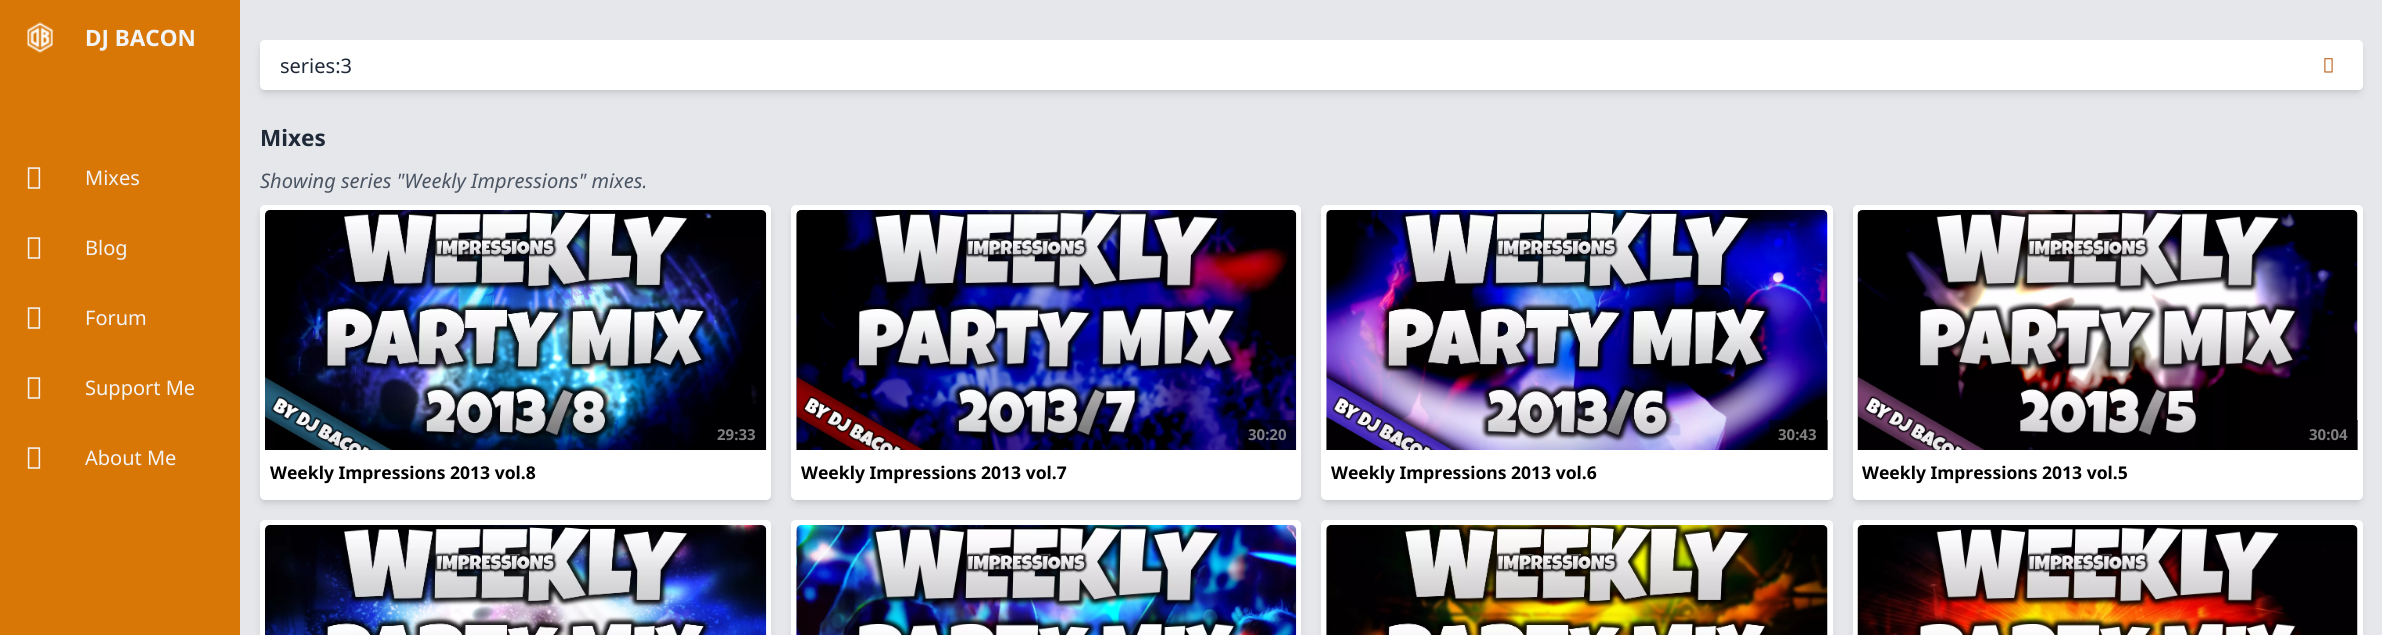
#include <cairo.h>
#include <math.h>
#include <stddef.h>


static void set_color(cairo_t *cr, unsigned color) {
    cairo_set_source_rgb(cr, (color >> 16) / 255.0, (color >> 8 & 255) / 255.0, (color & 255) / 255.0);
}

static void draw_text(cairo_t *cr, double x, double y, const char *s, const char *family, double size, int italic, int bold, unsigned color) {
    cairo_select_font_face(cr, family, italic ? CAIRO_FONT_SLANT_ITALIC : CAIRO_FONT_SLANT_NORMAL,
        bold ? CAIRO_FONT_WEIGHT_BOLD : CAIRO_FONT_WEIGHT_NORMAL);
    cairo_set_font_size(cr, size);
    set_color(cr, color);
    cairo_move_to(cr, x, y);
    cairo_show_text(cr, s);
}

static void fill_rect(cairo_t *cr, double x, double y, double w, double h, unsigned color) {
    set_color(cr, color);
    cairo_rectangle(cr, x, y, w, h);
    cairo_fill(cr);
}

static void rounded_rect(cairo_t *cr, double x, double y, double w, double h, double r) {
    cairo_new_sub_path(cr);
    cairo_arc(cr, x + w - r, y + h - r, r, 0, M_PI / 2);
    cairo_arc(cr, x + r, y + h - r, r, M_PI / 2, M_PI);
    cairo_arc(cr, x + r, y + r, r, M_PI, 1.5 * M_PI);
    cairo_arc(cr, x + w - r, y + r, r, 1.5 * M_PI, 2 * M_PI);
    cairo_close_path(cr);
}

static void draw_shadow(cairo_t *cr, double x, double y, double w, double h, double r, double blur, double alpha) {
    cairo_push_group_with_content(cr, CAIRO_CONTENT_ALPHA);
    cairo_set_operator(cr, CAIRO_OPERATOR_SOURCE);
    for (int i = 15; i >= -15 && fmin(w, h) + blur * i / 3 > 0; i -= 2) {
        double e = blur * i / 6;
        cairo_set_source_rgba(cr, 0, 0, 0, alpha * erfc((i - 1) / 8.5) / 2);
        rounded_rect(cr, x - e, y - e, w + 2 * e, h + 2 * e, fmax(0, fmin(r + e + blur * .6, fmin(w, h) / 2 + e)));
        cairo_fill(cr);
    }
    cairo_pattern_t *soft = cairo_pop_group(cr);
    cairo_mask(cr, soft);
    cairo_pattern_destroy(soft);
}

static void draw_image(cairo_t *cr, const char *path, double x, double y, double w, double h) {
    cairo_surface_t *image = cairo_image_surface_create_from_png(path);
    cairo_save(cr);
    cairo_set_source_surface(cr, image, x, y);
    cairo_rectangle(cr, x, y, w, h);
    cairo_fill(cr);
    cairo_restore(cr);
    cairo_surface_destroy(image);
}

int main(void) {
    cairo_surface_t *surface = cairo_image_surface_create(CAIRO_FORMAT_RGB24, 2382, 635);
    cairo_t *cr = cairo_create(surface);
    cairo_font_options_t *options = cairo_font_options_create();
    cairo_font_options_set_hint_metrics(options, CAIRO_HINT_METRICS_OFF);
    cairo_font_options_set_hint_style(options, CAIRO_HINT_STYLE_NONE);
    cairo_set_font_options(cr, options);
    cairo_set_miter_limit(cr, 4);
    set_color(cr, 0xE5E7EB);
    cairo_paint(cr);
    fill_rect(cr, 0, 0, 240, 635, 0xD97706);
    draw_image(cr, "assets/img1.png", 27, 22, 26, 31);
    draw_text(cr, 85, 46, "DJ BACON", "Noto Sans", 22.5, 0, 1, 0xF3F4F6);
    draw_image(cr, "assets/img2.png", 27, 167, 14, 22);
    draw_text(cr, 85, 185, "Mixes", "Noto Sans", 20, 0, 0, 0xF3F4F6);
    draw_image(cr, "assets/img2.png", 27, 237, 14, 22);
    draw_text(cr, 85, 255, "Blog", "Noto Sans", 20, 0, 0, 0xF3F4F6);
    draw_image(cr, "assets/img2.png", 27, 307, 14, 22);
    draw_text(cr, 85, 325, "Forum", "Noto Sans", 20, 0, 0, 0xF3F4F6);
    draw_image(cr, "assets/img2.png", 27, 377, 14, 22);
    draw_text(cr, 85, 395, "Support Me", "Noto Sans", 20, 0, 0, 0xF3F4F6);
    draw_image(cr, "assets/img2.png", 27, 447, 14, 22);
    draw_text(cr, 85, 465, "About Me", "Noto Sans", 20, 0, 0, 0xF3F4F6);
    set_color(cr, 0x000000);
    draw_shadow(cr, 261, 44, 2100, 47, 4, 2.5, 0.06);
    draw_shadow(cr, 261, 46, 2100, 48, 4, 4, 0.1);
    set_color(cr, 0xFFFFFF);
    cairo_new_path(cr);
    cairo_move_to(cr, 265, 40);
    cairo_line_to(cr, 2303, 40);
    cairo_line_to(cr, 2303, 90);
    cairo_line_to(cr, 265, 90);
    cairo_curve_to(cr, 262, 90, 260, 88, 260, 85);
    cairo_line_to(cr, 260, 45);
    cairo_curve_to(cr, 260, 42, 262, 40, 265, 40);
    cairo_close_path(cr);
    cairo_fill(cr);
    draw_text(cr, 280, 73, "series:3", "Noto Sans", 20, 0, 0, 0x1F2937);
    set_color(cr, 0xFFFFFF);
    cairo_new_path(cr);
    cairo_move_to(cr, 2303, 40);
    cairo_line_to(cr, 2358, 40);
    cairo_curve_to(cr, 2361, 40, 2363, 42, 2363, 45);
    cairo_line_to(cr, 2363, 85);
    cairo_curve_to(cr, 2363, 88, 2361, 90, 2358, 90);
    cairo_line_to(cr, 2303, 90);
    cairo_close_path(cr);
    cairo_fill(cr);
    draw_image(cr, "assets/img3.png", 2324, 58, 9, 15);
    draw_text(cr, 260, 146, "Mixes", "Noto Sans", 22.5, 0, 1, 0x1F2937);
    draw_text(cr, 260, 188, "Showing series \"Weekly Impressions\" mixes.", "Noto Sans", 20, 1, 0, 0x4B5563);
    set_color(cr, 0x000000);
    draw_shadow(cr, 261, 209, 509, 292, 4, 2.5, 0.06);
    draw_shadow(cr, 261, 211, 509, 293, 4, 4, 0.1);
    set_color(cr, 0xFFFFFF);
    rounded_rect(cr, 260, 205, 511, 295, 5);
    cairo_fill(cr);
    draw_image(cr, "assets/img4.png", 265, 210, 502, 240);
    draw_text(cr, 717, 440, "29:33", "Noto Sans", 15, 0, 1, 0x808081);
    draw_text(cr, 270, 479, "Weekly Impressions 2013 vol.8", "Noto Sans", 17.5, 0, 1, 0x000000);
    set_color(cr, 0x000000);
    draw_shadow(cr, 793, 209, 507, 292, 4, 2.5, 0.06);
    draw_shadow(cr, 793, 211, 507, 293, 4, 4, 0.1);
    set_color(cr, 0xFFFFFF);
    rounded_rect(cr, 791, 205, 510, 295, 5);
    cairo_fill(cr);
    draw_image(cr, "assets/img5.png", 796, 210, 501, 240);
    cairo_set_source_rgba(cr, 0, 0, 0, 0.5);
    cairo_rectangle(cr, 1238, 420, 58, 30);
    cairo_fill(cr);
    draw_text(cr, 1248, 440, "30:20", "Noto Sans", 15, 0, 1, 0x80808B);
    draw_text(cr, 801, 479, "Weekly Impressions 2013 vol.7", "Noto Sans", 17.5, 0, 1, 0x000000);
    set_color(cr, 0x000000);
    draw_shadow(cr, 1323, 209, 508, 292, 4, 2.5, 0.06);
    draw_shadow(cr, 1323, 211, 508, 293, 4, 4, 0.1);
    set_color(cr, 0xFFFFFF);
    rounded_rect(cr, 1321, 205, 512, 295, 5);
    cairo_fill(cr);
    draw_image(cr, "assets/img6.png", 1326, 210, 502, 240);
    cairo_set_source_rgba(cr, 0, 0, 0, 0.5);
    cairo_rectangle(cr, 1769, 420, 59, 30);
    cairo_fill(cr);
    draw_text(cr, 1778, 440, "30:43", "Noto Sans", 15, 0, 1, 0x808081);
    draw_text(cr, 1331, 479, "Weekly Impressions 2013 vol.6", "Noto Sans", 17.5, 0, 1, 0x000000);
    set_color(cr, 0x000000);
    draw_shadow(cr, 1854, 209, 507, 292, 4, 2.5, 0.06);
    draw_shadow(cr, 1854, 211, 507, 293, 4, 4, 0.1);
    set_color(cr, 0xFFFFFF);
    rounded_rect(cr, 1853, 205, 510, 295, 5);
    cairo_fill(cr);
    draw_image(cr, "assets/img7.png", 1857, 210, 501, 240);
    cairo_set_source_rgba(cr, 0, 0, 0, 0.5);
    cairo_rectangle(cr, 2357, 420, 1, 30);
    cairo_fill(cr);
    draw_text(cr, 2309, 440, "30:04", "Noto Sans", 15, 0, 1, 0x808081);
    draw_text(cr, 1862, 479, "Weekly Impressions 2013 vol.5", "Noto Sans", 17.5, 0, 1, 0x000000);
    set_color(cr, 0x000000);
    draw_shadow(cr, 261, 526, 509, 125, 4, 4, 0.1);
    set_color(cr, 0xFFFFFF);
    cairo_new_path(cr);
    cairo_move_to(cr, 265, 520);
    cairo_line_to(cr, 766, 520);
    cairo_curve_to(cr, 769, 520, 771, 522, 771, 525);
    cairo_line_to(cr, 771, 635);
    cairo_line_to(cr, 260, 635);
    cairo_line_to(cr, 260, 525);
    cairo_curve_to(cr, 260, 522, 262, 520, 265, 520);
    cairo_close_path(cr);
    cairo_fill(cr);
    draw_image(cr, "assets/img8.png", 265, 525, 502, 110);
    set_color(cr, 0x000000);
    draw_shadow(cr, 793, 526, 507, 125, 4, 4, 0.1);
    set_color(cr, 0xFFFFFF);
    cairo_new_path(cr);
    cairo_move_to(cr, 796, 520);
    cairo_line_to(cr, 1296, 520);
    cairo_curve_to(cr, 1299, 520, 1301, 522, 1301, 525);
    cairo_line_to(cr, 1301, 635);
    cairo_line_to(cr, 791, 635);
    cairo_line_to(cr, 791, 525);
    cairo_curve_to(cr, 791, 522, 793, 520, 796, 520);
    cairo_close_path(cr);
    cairo_fill(cr);
    draw_image(cr, "assets/img9.png", 796, 525, 501, 110);
    set_color(cr, 0x000000);
    draw_shadow(cr, 1323, 526, 508, 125, 4, 4, 0.1);
    set_color(cr, 0xFFFFFF);
    cairo_new_path(cr);
    cairo_move_to(cr, 1326, 520);
    cairo_line_to(cr, 1828, 520);
    cairo_curve_to(cr, 1831, 520, 1833, 522, 1833, 525);
    cairo_line_to(cr, 1833, 635);
    cairo_line_to(cr, 1321, 635);
    cairo_line_to(cr, 1321, 525);
    cairo_curve_to(cr, 1321, 522, 1323, 520, 1326, 520);
    cairo_close_path(cr);
    cairo_fill(cr);
    draw_image(cr, "assets/img10.png", 1326, 525, 502, 110);
    set_color(cr, 0x000000);
    draw_shadow(cr, 1854, 526, 507, 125, 4, 4, 0.1);
    set_color(cr, 0xFFFFFF);
    cairo_new_path(cr);
    cairo_move_to(cr, 1858, 520);
    cairo_line_to(cr, 2358, 520);
    cairo_curve_to(cr, 2361, 520, 2363, 522, 2363, 525);
    cairo_line_to(cr, 2363, 635);
    cairo_line_to(cr, 1853, 635);
    cairo_line_to(cr, 1853, 525);
    cairo_curve_to(cr, 1853, 522, 1855, 520, 1858, 520);
    cairo_close_path(cr);
    cairo_fill(cr);
    draw_image(cr, "assets/img11.png", 1857, 525, 501, 110);
    cairo_surface_write_to_png(surface, "output.png");
    cairo_font_options_destroy(options);
    cairo_destroy(cr);
    cairo_surface_destroy(surface);
    return 0;
}
